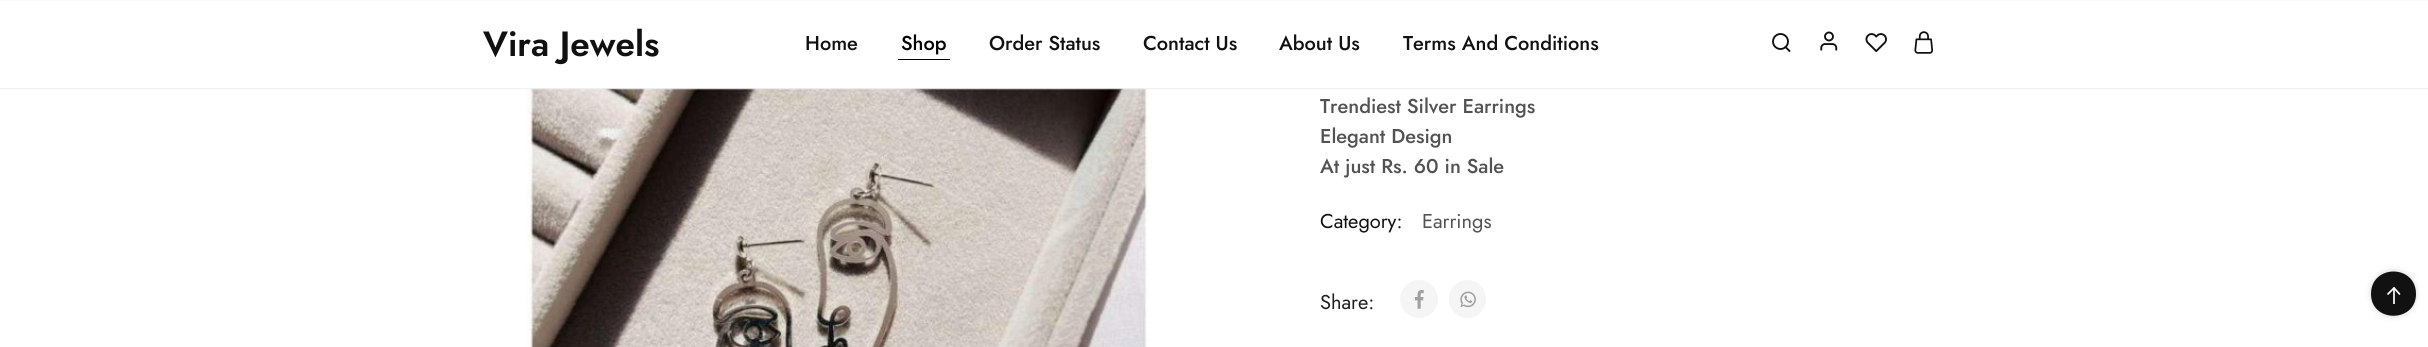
#include <cairo.h>
#include <math.h>
#include <stddef.h>


static void set_color(cairo_t *cr, unsigned color) {
    cairo_set_source_rgb(cr, (color >> 16) / 255.0, (color >> 8 & 255) / 255.0, (color & 255) / 255.0);
}

static void draw_text(cairo_t *cr, double x, double y, const char *s, const char *family, double size, int italic, int bold, unsigned color) {
    cairo_select_font_face(cr, family, italic ? CAIRO_FONT_SLANT_ITALIC : CAIRO_FONT_SLANT_NORMAL,
        bold ? CAIRO_FONT_WEIGHT_BOLD : CAIRO_FONT_WEIGHT_NORMAL);
    cairo_set_font_size(cr, size);
    set_color(cr, color);
    cairo_move_to(cr, x, y);
    cairo_show_text(cr, s);
}

static void fill_rect(cairo_t *cr, double x, double y, double w, double h, unsigned color) {
    set_color(cr, color);
    cairo_rectangle(cr, x, y, w, h);
    cairo_fill(cr);
}

static void rounded_rect(cairo_t *cr, double x, double y, double w, double h, double r) {
    cairo_new_sub_path(cr);
    cairo_arc(cr, x + w - r, y + h - r, r, 0, M_PI / 2);
    cairo_arc(cr, x + r, y + h - r, r, M_PI / 2, M_PI);
    cairo_arc(cr, x + r, y + r, r, M_PI, 1.5 * M_PI);
    cairo_arc(cr, x + w - r, y + r, r, 1.5 * M_PI, 2 * M_PI);
    cairo_close_path(cr);
}

static void draw_shadow(cairo_t *cr, double x, double y, double w, double h, double r, double blur, double alpha) {
    cairo_push_group_with_content(cr, CAIRO_CONTENT_ALPHA);
    cairo_set_operator(cr, CAIRO_OPERATOR_SOURCE);
    for (int i = 15; i >= -15 && fmin(w, h) + blur * i / 3 > 0; i -= 2) {
        double e = blur * i / 6;
        cairo_set_source_rgba(cr, 0, 0, 0, alpha * erfc((i - 1) / 8.5) / 2);
        rounded_rect(cr, x - e, y - e, w + 2 * e, h + 2 * e, fmax(0, fmin(r + e + blur * .6, fmin(w, h) / 2 + e)));
        cairo_fill(cr);
    }
    cairo_pattern_t *soft = cairo_pop_group(cr);
    cairo_mask(cr, soft);
    cairo_pattern_destroy(soft);
}

static void draw_image(cairo_t *cr, const char *path, double x, double y, double w, double h) {
    cairo_surface_t *image = cairo_image_surface_create_from_png(path);
    cairo_save(cr);
    cairo_set_source_surface(cr, image, x, y);
    cairo_rectangle(cr, x, y, w, h);
    cairo_fill(cr);
    cairo_restore(cr);
    cairo_surface_destroy(image);
}

int main(void) {
    cairo_surface_t *surface = cairo_image_surface_create(CAIRO_FORMAT_RGB24, 2428, 347);
    cairo_t *cr = cairo_create(surface);
    cairo_font_options_t *options = cairo_font_options_create();
    cairo_font_options_set_hint_metrics(options, CAIRO_HINT_METRICS_OFF);
    cairo_font_options_set_hint_style(options, CAIRO_HINT_STYLE_NONE);
    cairo_set_font_options(cr, options);
    cairo_set_miter_limit(cr, 4);
    set_color(cr, 0xFFFFFF);
    cairo_paint(cr);
    draw_image(cr, "assets/img4.png", 526, 88, 623, 259);
    set_color(cr, 0xF0F0F0);
    draw_shadow(cr, 0, 1, 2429, 88, 0, 0.5, 1);
    fill_rect(cr, 0, 1, 2428, 87, 0xFFFFFF);
    draw_text(cr, 483, 56, "Vira Jewels", "Jost SemiBold", 35, 0, 0, 0x111111);
    draw_text(cr, 805, 50, "Home", "Jost Medium", 20, 0, 0, 0x111111);
    draw_text(cr, 901, 50, "Shop", "Jost Medium", 20, 0, 0, 0x000000);
    fill_rect(cr, 898, 59, 52, 1, 0x000000);
    draw_text(cr, 989, 50, "Order Status", "Jost Medium", 20, 0, 0, 0x111111);
    draw_text(cr, 1143, 50, "Contact Us", "Jost Medium", 20, 0, 0, 0x111111);
    draw_text(cr, 1279, 50, "About Us", "Jost Medium", 20, 0, 0, 0x111111);
    draw_text(cr, 1403, 50, "Terms And Conditions", "Jost Medium", 20, 0, 0, 0x111111);
    cairo_new_path(cr);
    cairo_arc(cr, 1780.5, 41.5, 7.5, 0, 2 * M_PI);
    cairo_set_line_width(cr, 1.9);
    cairo_stroke(cr);
    cairo_new_path(cr);
    cairo_move_to(cr, 1789.5, 51);
    cairo_line_to(cr, 1785.5, 47);
    cairo_set_line_cap(cr, CAIRO_LINE_CAP_ROUND);
    cairo_set_line_join(cr, CAIRO_LINE_JOIN_ROUND);
    cairo_stroke(cr);
    draw_image(cr, "assets/img1.png", 1820, 31, 18, 20);
    draw_image(cr, "assets/img2.png", 1865, 33, 22, 20);
    draw_image(cr, "assets/img3.png", 1914, 31, 19, 23);
    draw_text(cr, 1320, 113, "Trendiest Silver Earrings", "Jost Medium", 20, 0, 0, 0x525252);
    draw_text(cr, 1320, 143, "Elegant Design", "Jost Medium", 20, 0, 0, 0x525252);
    draw_text(cr, 1320, 173, "At just Rs. 60 in Sale", "Jost Medium", 20, 0, 0, 0x525252);
    draw_text(cr, 1320, 228, "Category:", "Jost", 20, 0, 0, 0x111111);
    draw_text(cr, 1422, 228, "Earrings", "Jost", 20, 0, 0, 0x525252);
    draw_text(cr, 1320, 309, "Share:", "Jost", 20, 0, 0, 0x1F1F1F);
    set_color(cr, 0xF5F5F5);
    cairo_new_path(cr);
    cairo_arc(cr, 1419, 299, 19, 0, 2 * M_PI);
    cairo_fill(cr);
    draw_image(cr, "assets/img5.png", 1415, 290, 9, 19);
    rounded_rect(cr, 1449, 280, 37, 38, 18.5);
    cairo_fill(cr);
    draw_image(cr, "assets/img6.png", 1460, 291, 16, 17);
    set_color(cr, 0x000000);
    draw_shadow(cr, 2371, 271, 45, 45, 22.5, 3, 0.17);
    set_color(cr, 0x111111);
    cairo_new_path(cr);
    cairo_move_to(cr, 2371, 294);
    cairo_curve_to(cr, 2371, 264, 2416, 264, 2416, 294);
    cairo_curve_to(cr, 2416, 323, 2371, 323, 2371, 294);
    cairo_close_path(cr);
    cairo_fill(cr);
    cairo_save(cr);
    cairo_new_path(cr);
    cairo_move_to(cr, 2384, 304);
    cairo_line_to(cr, 2384, 284);
    cairo_line_to(cr, 2404, 284);
    cairo_line_to(cr, 2404, 304);
    cairo_close_path(cr);
    cairo_clip(cr);
    cairo_new_path(cr);
    cairo_move_to(cr, 2394, 304);
    cairo_line_to(cr, 2394, 288);
    set_color(cr, 0xFFFFFF);
    cairo_set_line_width(cr, 1.7);
    cairo_stroke(cr);
    cairo_restore(cr);
    cairo_new_path(cr);
    cairo_move_to(cr, 2388, 294);
    cairo_line_to(cr, 2394, 288);
    cairo_line_to(cr, 2399.5, 294);
    set_color(cr, 0xFFFFFF);
    cairo_set_line_width(cr, 1.7);
    cairo_stroke(cr);
    cairo_surface_write_to_png(surface, "output.png");
    cairo_font_options_destroy(options);
    cairo_destroy(cr);
    cairo_surface_destroy(surface);
    return 0;
}
